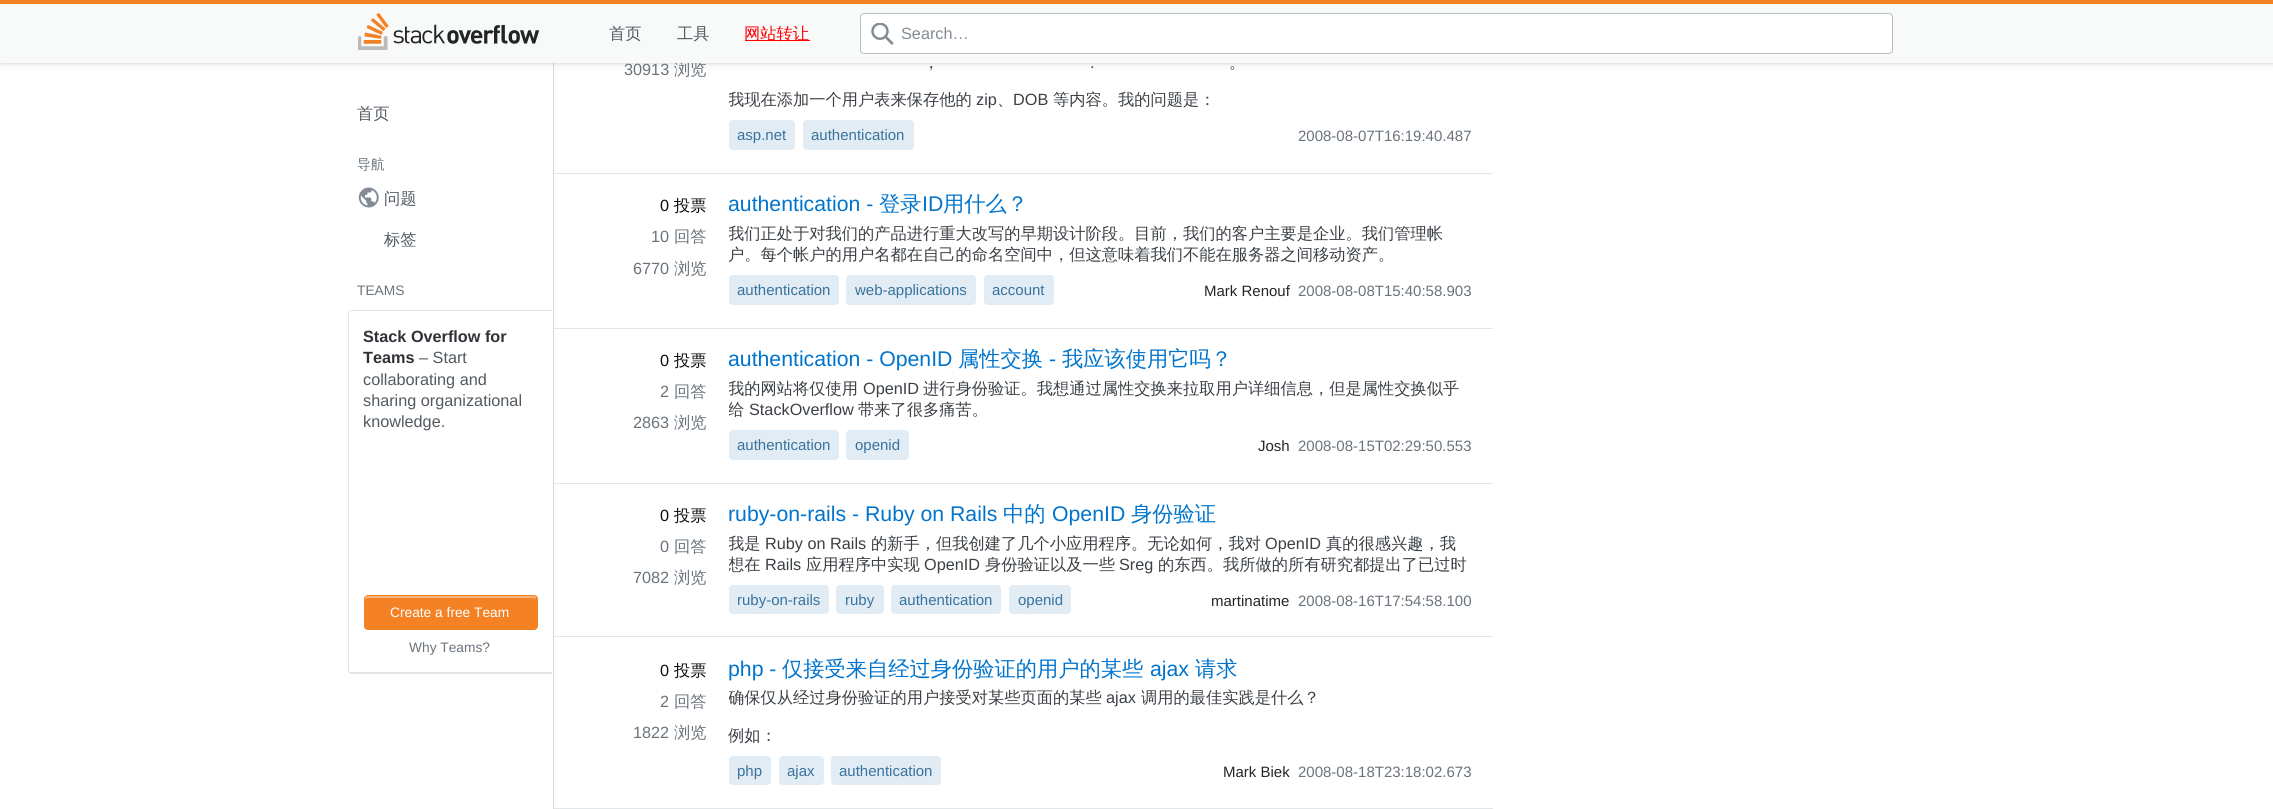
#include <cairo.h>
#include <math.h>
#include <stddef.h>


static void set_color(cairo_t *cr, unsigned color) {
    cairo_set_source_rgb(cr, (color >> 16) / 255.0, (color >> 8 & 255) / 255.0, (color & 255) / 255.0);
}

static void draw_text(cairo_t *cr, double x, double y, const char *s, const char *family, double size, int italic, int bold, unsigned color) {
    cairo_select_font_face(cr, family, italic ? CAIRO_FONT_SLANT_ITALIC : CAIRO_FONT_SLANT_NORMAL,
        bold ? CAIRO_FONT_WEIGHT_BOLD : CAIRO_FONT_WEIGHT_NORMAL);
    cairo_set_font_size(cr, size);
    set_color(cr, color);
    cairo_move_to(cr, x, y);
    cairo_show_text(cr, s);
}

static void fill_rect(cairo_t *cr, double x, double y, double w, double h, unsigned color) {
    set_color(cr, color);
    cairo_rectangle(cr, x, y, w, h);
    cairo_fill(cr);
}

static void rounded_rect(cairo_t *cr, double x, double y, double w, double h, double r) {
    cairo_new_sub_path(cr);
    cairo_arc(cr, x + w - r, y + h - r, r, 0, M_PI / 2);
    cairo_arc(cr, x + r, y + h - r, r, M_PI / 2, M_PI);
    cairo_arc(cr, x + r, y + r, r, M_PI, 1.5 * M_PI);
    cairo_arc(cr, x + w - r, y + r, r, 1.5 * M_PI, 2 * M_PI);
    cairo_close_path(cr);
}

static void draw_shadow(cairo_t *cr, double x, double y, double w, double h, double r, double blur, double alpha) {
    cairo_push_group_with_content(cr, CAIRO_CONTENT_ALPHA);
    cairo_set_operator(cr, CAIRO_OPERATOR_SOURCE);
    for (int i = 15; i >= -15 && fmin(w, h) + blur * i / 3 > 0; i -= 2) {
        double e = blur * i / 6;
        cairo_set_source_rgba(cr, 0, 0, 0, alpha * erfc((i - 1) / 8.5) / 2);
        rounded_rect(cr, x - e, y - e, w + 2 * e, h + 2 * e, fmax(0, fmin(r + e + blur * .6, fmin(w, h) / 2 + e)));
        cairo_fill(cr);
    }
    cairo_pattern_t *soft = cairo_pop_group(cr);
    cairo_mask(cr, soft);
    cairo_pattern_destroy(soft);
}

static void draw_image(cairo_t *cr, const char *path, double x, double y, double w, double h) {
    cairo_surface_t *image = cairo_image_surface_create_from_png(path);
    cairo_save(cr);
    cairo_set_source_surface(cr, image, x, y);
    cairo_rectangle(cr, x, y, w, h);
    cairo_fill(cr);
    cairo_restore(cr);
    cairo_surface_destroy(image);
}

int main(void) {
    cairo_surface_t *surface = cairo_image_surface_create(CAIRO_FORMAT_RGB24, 2273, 809);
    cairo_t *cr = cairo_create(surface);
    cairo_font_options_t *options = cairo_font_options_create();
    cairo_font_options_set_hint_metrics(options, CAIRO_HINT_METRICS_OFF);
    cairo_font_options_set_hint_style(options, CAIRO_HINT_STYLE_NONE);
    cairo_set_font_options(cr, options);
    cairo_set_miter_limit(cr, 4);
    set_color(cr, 0xFFFFFF);
    cairo_paint(cr);
    fill_rect(cr, 553, 63, 1, 746, 0xD6D9DC);
    set_color(cr, 0x000000);
    draw_shadow(cr, 0, 3, 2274, 62, 0, 5, 0.05);
    draw_shadow(cr, 0, 1, 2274, 63, 0, 2.5, 0.05);
    draw_shadow(cr, 0, 1, 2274, 63, 0, 1, 0.05);
    draw_text(cr, 674, 75, "浏览", "WenQuanYi Zen Hei Medium", 16.25, 0, 0, 0x6A737C);
    fill_rect(cr, 0, 4, 2273, 59, 0xF8F9F9);
    fill_rect(cr, 0, 0, 2273, 4, 0xF48225);
    draw_image(cr, "assets/img1.png", 358, 13, 182, 37);
    draw_text(cr, 609, 39, "首页", "WenQuanYi Zen Hei Medium", 16.25, 0, 0, 0x525960);
    draw_text(cr, 677, 39, "工具", "WenQuanYi Zen Hei Medium", 16.25, 0, 0, 0x525960);
    fill_rect(cr, 745, 40, 65, 1, 0xFF0000);
    draw_text(cr, 744, 39, "网站转让", "WenQuanYi Zen Hei Medium", 16.25, 0, 0, 0xFF0000);
    set_color(cr, 0xFFFFFF);
    rounded_rect(cr, 860.5, 13.5, 1032, 40, 3.5);
    cairo_fill_preserve(cr);
    set_color(cr, 0xBABFC4);
    cairo_set_line_width(cr, 1);
    cairo_stroke(cr);
    draw_image(cr, "assets/img2.png", 871, 23, 23, 22);
    draw_text(cr, 901, 39, "Search…", "Liberation Sans", 16.25, 0, 0, 0x838C95);
    draw_text(cr, 357, 119, "首页", "WenQuanYi Zen Hei Medium", 16.25, 0, 0, 0x525960);
    draw_text(cr, 357, 169, "导航", "WenQuanYi Zen Hei Medium", 13.75, 0, 0, 0x6A737C);
    draw_image(cr, "assets/img3.png", 358, 187, 21, 21);
    draw_text(cr, 384, 204, "问题", "WenQuanYi Zen Hei Medium", 16.25, 0, 0, 0x525960);
    draw_text(cr, 384, 245, "标签", "WenQuanYi Zen Hei Medium", 16.25, 0, 0, 0x525960);
    draw_text(cr, 357, 295, "TEAMS", "Liberation Sans", 13.75, 0, 0, 0x6A737C);
    set_color(cr, 0xE3E6E8);
    cairo_set_fill_rule(cr, CAIRO_FILL_RULE_EVEN_ODD);
    cairo_new_path(cr);
    cairo_move_to(cr, 351, 310);
    cairo_line_to(cr, 552, 310);
    cairo_line_to(cr, 552, 674);
    cairo_line_to(cr, 351, 674);
    cairo_curve_to(cr, 349, 674, 348, 672, 348, 670);
    cairo_line_to(cr, 348, 314);
    cairo_curve_to(cr, 348, 312, 349, 310, 351, 310);
    cairo_close_path(cr);
    cairo_move_to(cr, 351, 311);
    cairo_line_to(cr, 552, 311);
    cairo_line_to(cr, 552, 672);
    cairo_line_to(cr, 351, 672);
    cairo_curve_to(cr, 350, 672, 349, 671, 349, 670);
    cairo_line_to(cr, 349, 314);
    cairo_curve_to(cr, 349, 312, 350, 311, 351, 311);
    cairo_close_path(cr);
    cairo_fill(cr);
    draw_text(cr, 363, 342, "Stack Overflow for", "Liberation Sans", 16.25, 0, 1, 0x2F3337);
    draw_text(cr, 363, 363, "Teams", "Liberation Sans", 16.25, 0, 1, 0x2F3337);
    draw_text(cr, 419, 363, "– Start", "Liberation Sans", 16.25, 0, 0, 0x525960);
    draw_text(cr, 363, 385, "collaborating and", "Liberation Sans", 16.25, 0, 0, 0x525960);
    draw_text(cr, 363, 406, "sharing organizational", "Liberation Sans", 16.25, 0, 0, 0x525960);
    draw_text(cr, 363, 427, "knowledge.", "Liberation Sans", 16.25, 0, 0, 0x525960);
    set_color(cr, 0xF48225);
    rounded_rect(cr, 364, 595, 174, 35, 4);
    cairo_fill(cr);
    set_color(cr, 0xF8B47C);
    cairo_set_fill_rule(cr, CAIRO_FILL_RULE_WINDING);
    cairo_new_path(cr);
    cairo_move_to(cr, 368, 598);
    cairo_line_to(cr, 534, 598);
    cairo_curve_to(cr, 535, 598, 536, 599, 536, 600);
    cairo_line_to(cr, 536, 598);
    cairo_curve_to(cr, 536, 597, 535, 596, 534, 596);
    cairo_line_to(cr, 368, 596);
    cairo_curve_to(cr, 366, 596, 365, 597, 365, 598);
    cairo_line_to(cr, 365, 600);
    cairo_curve_to(cr, 365, 599, 366, 598, 368, 598);
    cairo_close_path(cr);
    cairo_fill(cr);
    draw_text(cr, 390, 617, "Create a free Team", "Liberation Sans", 13.75, 0, 0, 0xFFFFFF);
    draw_text(cr, 409, 652, "Why Teams?", "Liberation Sans", 13.75, 0, 0, 0x6A737C);
    fill_rect(cr, 554, 173, 939, 1, 0xE3E6E8);
    draw_text(cr, 624, 75, "30913", "Liberation Sans", 16.25, 0, 0, 0x6A737C);
    draw_text(cr, 923, 68, "，", "WenQuanYi Zen Hei Medium", 16.25, 0, 0, 0x3B4045);
    draw_text(cr, 1090, 68, ".", "Liberation Sans", 16.25, 0, 0, 0x3B4045);
    draw_text(cr, 1229, 68, "。", "WenQuanYi Zen Hei Medium", 16.25, 0, 0, 0x3B4045);
    cairo_save(cr);
    cairo_rectangle(cr, 729, 51, 744, 59);
    cairo_clip(cr);
    draw_text(cr, 728, 105, "我现在添加一个用户表来保存他的", "WenQuanYi Zen Hei Medium", 16.25, 0, 0, 0x3B4045);
    cairo_restore(cr);
    draw_text(cr, 976, 105, "zip", "Liberation Sans", 16.25, 0, 0, 0x3B4045);
    draw_text(cr, 997, 105, "、", "WenQuanYi Zen Hei Medium", 16.25, 0, 0, 0x3B4045);
    draw_text(cr, 1013, 105, "DOB", "Liberation Sans", 16.25, 0, 0, 0x3B4045);
    draw_text(cr, 1053, 105, "等内容。我的问题是：", "WenQuanYi Zen Hei Medium", 16.25, 0, 0, 0x3B4045);
    set_color(cr, 0xE1ECF4);
    rounded_rect(cr, 729, 120, 66, 30, 4);
    cairo_fill(cr);
    draw_text(cr, 737, 140, "asp.net", "Liberation Sans", 15, 0, 0, 0x39739D);
    set_color(cr, 0xE1ECF4);
    rounded_rect(cr, 803, 120, 111, 30, 4);
    cairo_fill(cr);
    draw_text(cr, 811, 140, "authentication", "Liberation Sans", 15, 0, 0, 0x39739D);
    draw_text(cr, 1298, 141, "2008-08-07T16:19:40.487", "Liberation Sans", 15, 0, 0, 0x6A737C);
    fill_rect(cr, 554, 328, 939, 1, 0xE3E6E8);
    draw_text(cr, 660, 211, "0", "Liberation Sans", 16.25, 0, 0, 0x0C0D0E);
    draw_text(cr, 674, 211, "投票", "WenQuanYi Zen Hei Medium", 16.25, 0, 0, 0x0C0D0E);
    draw_text(cr, 651, 242, "10", "Liberation Sans", 16.25, 0, 0, 0x6A737C);
    draw_text(cr, 674, 242, "回答", "WenQuanYi Zen Hei Medium", 16.25, 0, 0, 0x6A737C);
    draw_text(cr, 633, 274, "6770", "Liberation Sans", 16.25, 0, 0, 0x6A737C);
    draw_text(cr, 674, 274, "浏览", "WenQuanYi Zen Hei Medium", 16.25, 0, 0, 0x6A737C);
    draw_text(cr, 728, 211, "authentication -", "Liberation Sans", 21.25, 0, 0, 0x0074CC);
    draw_text(cr, 879, 211, "登录", "WenQuanYi Zen Hei Medium", 21.25, 0, 0, 0x0074CC);
    draw_text(cr, 922, 211, "ID", "Liberation Sans", 21.25, 0, 0, 0x0074CC);
    draw_text(cr, 943, 211, "用什么？", "WenQuanYi Zen Hei Medium", 21.25, 0, 0, 0x0074CC);
    cairo_save(cr);
    cairo_rectangle(cr, 729, 223, 744, 42);
    cairo_clip(cr);
    draw_text(cr, 728, 239, "我们正处于对我们的产品进行重大改写的早期设计阶段。目前，我们的客户主要是企业。我们管理帐", "WenQuanYi Zen Hei Medium", 16.25, 0, 0, 0x3B4045);
    cairo_restore(cr);
    draw_text(cr, 728, 260, "户。每个帐户的用户名都在自己的命名空间中，但这意味着我们不能在服务器之间移动资产。", "WenQuanYi Zen Hei Medium", 16.25, 0, 0, 0x3B4045);
    set_color(cr, 0xE1ECF4);
    rounded_rect(cr, 729, 275, 110, 30, 4);
    cairo_fill(cr);
    draw_text(cr, 737, 295, "authentication", "Liberation Sans", 15, 0, 0, 0x39739D);
    set_color(cr, 0xE1ECF4);
    rounded_rect(cr, 846, 275, 130, 30, 4);
    cairo_fill(cr);
    draw_text(cr, 855, 295, "web-applications", "Liberation Sans", 15, 0, 0, 0x39739D);
    set_color(cr, 0xE1ECF4);
    rounded_rect(cr, 984, 275, 70, 30, 4);
    cairo_fill(cr);
    draw_text(cr, 992, 295, "account", "Liberation Sans", 15, 0, 0, 0x39739D);
    draw_text(cr, 1204, 296, "Mark Renouf", "Liberation Sans", 15, 0, 0, 0x232629);
    draw_text(cr, 1298, 296, "2008-08-08T15:40:58.903", "Liberation Sans", 15, 0, 0, 0x6A737C);
    fill_rect(cr, 554, 483, 939, 1, 0xE3E6E8);
    draw_text(cr, 660, 366, "0", "Liberation Sans", 16.25, 0, 0, 0x0C0D0E);
    draw_text(cr, 674, 366, "投票", "WenQuanYi Zen Hei Medium", 16.25, 0, 0, 0x0C0D0E);
    draw_text(cr, 660, 397, "2", "Liberation Sans", 16.25, 0, 0, 0x6A737C);
    draw_text(cr, 674, 397, "回答", "WenQuanYi Zen Hei Medium", 16.25, 0, 0, 0x6A737C);
    draw_text(cr, 633, 428, "2863", "Liberation Sans", 16.25, 0, 0, 0x6A737C);
    draw_text(cr, 674, 428, "浏览", "WenQuanYi Zen Hei Medium", 16.25, 0, 0, 0x6A737C);
    draw_text(cr, 728, 366, "authentication - OpenID", "Liberation Sans", 21.25, 0, 0, 0x0074CC);
    draw_text(cr, 958, 366, "属性交换", "WenQuanYi Zen Hei Medium", 21.25, 0, 0, 0x0074CC);
    draw_text(cr, 1049, 366, "-", "Liberation Sans", 21.25, 0, 0, 0x0074CC);
    draw_text(cr, 1062, 366, "我应该使用它吗？", "WenQuanYi Zen Hei Medium", 21.25, 0, 0, 0x0074CC);
    cairo_save(cr);
    cairo_rectangle(cr, 729, 378, 744, 42);
    cairo_clip(cr);
    draw_text(cr, 728, 394, "我的网站将仅使用", "WenQuanYi Zen Hei Medium", 16.25, 0, 0, 0x3B4045);
    cairo_restore(cr);
    draw_text(cr, 863, 394, "OpenID", "Liberation Sans", 16.25, 0, 0, 0x3B4045);
    draw_text(cr, 923, 394, "进行身份验证。我想通过属性交换来拉取用户详细信息，但是属性交换似乎", "WenQuanYi Zen Hei Medium", 16.25, 0, 0, 0x3B4045);
    cairo_save(cr);
    cairo_rectangle(cr, 729, 378, 744, 42);
    cairo_clip(cr);
    draw_text(cr, 728, 415, "给", "WenQuanYi Zen Hei Medium", 16.25, 0, 0, 0x3B4045);
    cairo_restore(cr);
    draw_text(cr, 749, 415, "StackOverflow", "Liberation Sans", 16.25, 0, 0, 0x3B4045);
    draw_text(cr, 858, 415, "带来了很多痛苦。", "WenQuanYi Zen Hei Medium", 16.25, 0, 0, 0x3B4045);
    set_color(cr, 0xE1ECF4);
    rounded_rect(cr, 729, 430, 110, 30, 4);
    cairo_fill(cr);
    draw_text(cr, 737, 450, "authentication", "Liberation Sans", 15, 0, 0, 0x39739D);
    set_color(cr, 0xE1ECF4);
    rounded_rect(cr, 846, 430, 63, 30, 4);
    cairo_fill(cr);
    draw_text(cr, 855, 450, "openid", "Liberation Sans", 15, 0, 0, 0x39739D);
    draw_text(cr, 1258, 451, "Josh", "Liberation Sans", 15, 0, 0, 0x232629);
    draw_text(cr, 1298, 451, "2008-08-15T02:29:50.553", "Liberation Sans", 15, 0, 0, 0x6A737C);
    fill_rect(cr, 554, 636, 939, 1, 0xE3E6E8);
    draw_text(cr, 660, 521, "0", "Liberation Sans", 16.25, 0, 0, 0x0C0D0E);
    draw_text(cr, 674, 521, "投票", "WenQuanYi Zen Hei Medium", 16.25, 0, 0, 0x0C0D0E);
    draw_text(cr, 660, 552, "0", "Liberation Sans", 16.25, 0, 0, 0x6A737C);
    draw_text(cr, 674, 552, "回答", "WenQuanYi Zen Hei Medium", 16.25, 0, 0, 0x6A737C);
    draw_text(cr, 633, 583, "7082", "Liberation Sans", 16.25, 0, 0, 0x6A737C);
    draw_text(cr, 674, 583, "浏览", "WenQuanYi Zen Hei Medium", 16.25, 0, 0, 0x6A737C);
    draw_text(cr, 728, 521, "ruby-on-rails - Ruby on Rails", "Liberation Sans", 21.25, 0, 0, 0x0074CC);
    draw_text(cr, 1003, 521, "中的", "WenQuanYi Zen Hei Medium", 21.25, 0, 0, 0x0074CC);
    draw_text(cr, 1052, 521, "OpenID", "Liberation Sans", 21.25, 0, 0, 0x0074CC);
    draw_text(cr, 1131, 521, "身份验证", "WenQuanYi Zen Hei Medium", 21.25, 0, 0, 0x0074CC);
    cairo_save(cr);
    cairo_rectangle(cr, 729, 533, 744, 42);
    cairo_clip(cr);
    draw_text(cr, 728, 549, "我是", "WenQuanYi Zen Hei Medium", 16.25, 0, 0, 0x3B4045);
    cairo_restore(cr);
    draw_text(cr, 765, 549, "Ruby on Rails", "Liberation Sans", 16.25, 0, 0, 0x3B4045);
    draw_text(cr, 871, 549, "的新手，但我创建了几个小应用程序。无论如何，我对", "WenQuanYi Zen Hei Medium", 16.25, 0, 0, 0x3B4045);
    draw_text(cr, 1265, 549, "OpenID", "Liberation Sans", 16.25, 0, 0, 0x3B4045);
    draw_text(cr, 1326, 549, "真的很感兴趣，我", "WenQuanYi Zen Hei Medium", 16.25, 0, 0, 0x3B4045);
    cairo_save(cr);
    cairo_rectangle(cr, 729, 533, 744, 42);
    cairo_clip(cr);
    draw_text(cr, 728, 570, "想在", "WenQuanYi Zen Hei Medium", 16.25, 0, 0, 0x3B4045);
    cairo_restore(cr);
    draw_text(cr, 765, 570, "Rails", "Liberation Sans", 16.25, 0, 0, 0x3B4045);
    draw_text(cr, 806, 570, "应用程序中实现", "WenQuanYi Zen Hei Medium", 16.25, 0, 0, 0x3B4045);
    draw_text(cr, 924, 570, "OpenID", "Liberation Sans", 16.25, 0, 0, 0x3B4045);
    draw_text(cr, 985, 570, "身份验证以及一些", "WenQuanYi Zen Hei Medium", 16.25, 0, 0, 0x3B4045);
    draw_text(cr, 1119, 570, "Sreg", "Liberation Sans", 16.25, 0, 0, 0x3B4045);
    draw_text(cr, 1158, 570, "的东西。我所做的所有研究都提出了已过时", "WenQuanYi Zen Hei Medium", 16.25, 0, 0, 0x3B4045);
    set_color(cr, 0xE1ECF4);
    rounded_rect(cr, 729, 585, 100, 29, 4);
    cairo_fill(cr);
    draw_text(cr, 737, 605, "ruby-on-rails", "Liberation Sans", 15, 0, 0, 0x39739D);
    set_color(cr, 0xE1ECF4);
    rounded_rect(cr, 836, 585, 48, 29, 4);
    cairo_fill(cr);
    draw_text(cr, 845, 605, "ruby", "Liberation Sans", 15, 0, 0, 0x39739D);
    set_color(cr, 0xE1ECF4);
    rounded_rect(cr, 891, 585, 110, 29, 4);
    cairo_fill(cr);
    draw_text(cr, 899, 605, "authentication", "Liberation Sans", 15, 0, 0, 0x39739D);
    set_color(cr, 0xE1ECF4);
    rounded_rect(cr, 1009, 585, 62, 29, 4);
    cairo_fill(cr);
    draw_text(cr, 1018, 605, "openid", "Liberation Sans", 15, 0, 0, 0x39739D);
    draw_text(cr, 1211, 606, "martinatime", "Liberation Sans", 15, 0, 0, 0x232629);
    draw_text(cr, 1298, 606, "2008-08-16T17:54:58.100", "Liberation Sans", 15, 0, 0, 0x6A737C);
    fill_rect(cr, 554, 808, 939, 1, 0xE3E6E8);
    draw_text(cr, 660, 676, "0", "Liberation Sans", 16.25, 0, 0, 0x0C0D0E);
    draw_text(cr, 674, 676, "投票", "WenQuanYi Zen Hei Medium", 16.25, 0, 0, 0x0C0D0E);
    draw_text(cr, 660, 707, "2", "Liberation Sans", 16.25, 0, 0, 0x6A737C);
    draw_text(cr, 674, 707, "回答", "WenQuanYi Zen Hei Medium", 16.25, 0, 0, 0x6A737C);
    draw_text(cr, 633, 738, "1822", "Liberation Sans", 16.25, 0, 0, 0x6A737C);
    draw_text(cr, 674, 738, "浏览", "WenQuanYi Zen Hei Medium", 16.25, 0, 0, 0x6A737C);
    draw_text(cr, 728, 676, "php -", "Liberation Sans", 21.25, 0, 0, 0x0074CC);
    draw_text(cr, 782, 676, "仅接受来自经过身份验证的用户的某些", "WenQuanYi Zen Hei Medium", 21.25, 0, 0, 0x0074CC);
    draw_text(cr, 1150, 676, "ajax", "Liberation Sans", 21.25, 0, 0, 0x0074CC);
    draw_text(cr, 1195, 676, "请求", "WenQuanYi Zen Hei Medium", 21.25, 0, 0, 0x0074CC);
    cairo_save(cr);
    cairo_rectangle(cr, 729, 688, 744, 58);
    cairo_clip(cr);
    draw_text(cr, 728, 703, "确保仅从经过身份验证的用户接受对某些页面的某些", "WenQuanYi Zen Hei Medium", 16.25, 0, 0, 0x3B4045);
    cairo_restore(cr);
    draw_text(cr, 1106, 703, "ajax", "Liberation Sans", 16.25, 0, 0, 0x3B4045);
    draw_text(cr, 1141, 703, "调用的最佳实践是什么？", "WenQuanYi Zen Hei Medium", 16.25, 0, 0, 0x3B4045);
    draw_text(cr, 728, 741, "例如：", "WenQuanYi Zen Hei Medium", 16.25, 0, 0, 0x3B4045);
    set_color(cr, 0xE1ECF4);
    rounded_rect(cr, 729, 756, 42, 29, 4);
    cairo_fill(cr);
    draw_text(cr, 737, 776, "php", "Liberation Sans", 15, 0, 0, 0x39739D);
    set_color(cr, 0xE1ECF4);
    rounded_rect(cr, 779, 756, 45, 29, 4);
    cairo_fill(cr);
    draw_text(cr, 787, 776, "ajax", "Liberation Sans", 15, 0, 0, 0x39739D);
    set_color(cr, 0xE1ECF4);
    rounded_rect(cr, 831, 756, 110, 29, 4);
    cairo_fill(cr);
    draw_text(cr, 839, 776, "authentication", "Liberation Sans", 15, 0, 0, 0x39739D);
    draw_text(cr, 1223, 777, "Mark Biek", "Liberation Sans", 15, 0, 0, 0x232629);
    draw_text(cr, 1298, 777, "2008-08-18T23:18:02.673", "Liberation Sans", 15, 0, 0, 0x6A737C);
    cairo_surface_write_to_png(surface, "output.png");
    cairo_font_options_destroy(options);
    cairo_destroy(cr);
    cairo_surface_destroy(surface);
    return 0;
}
